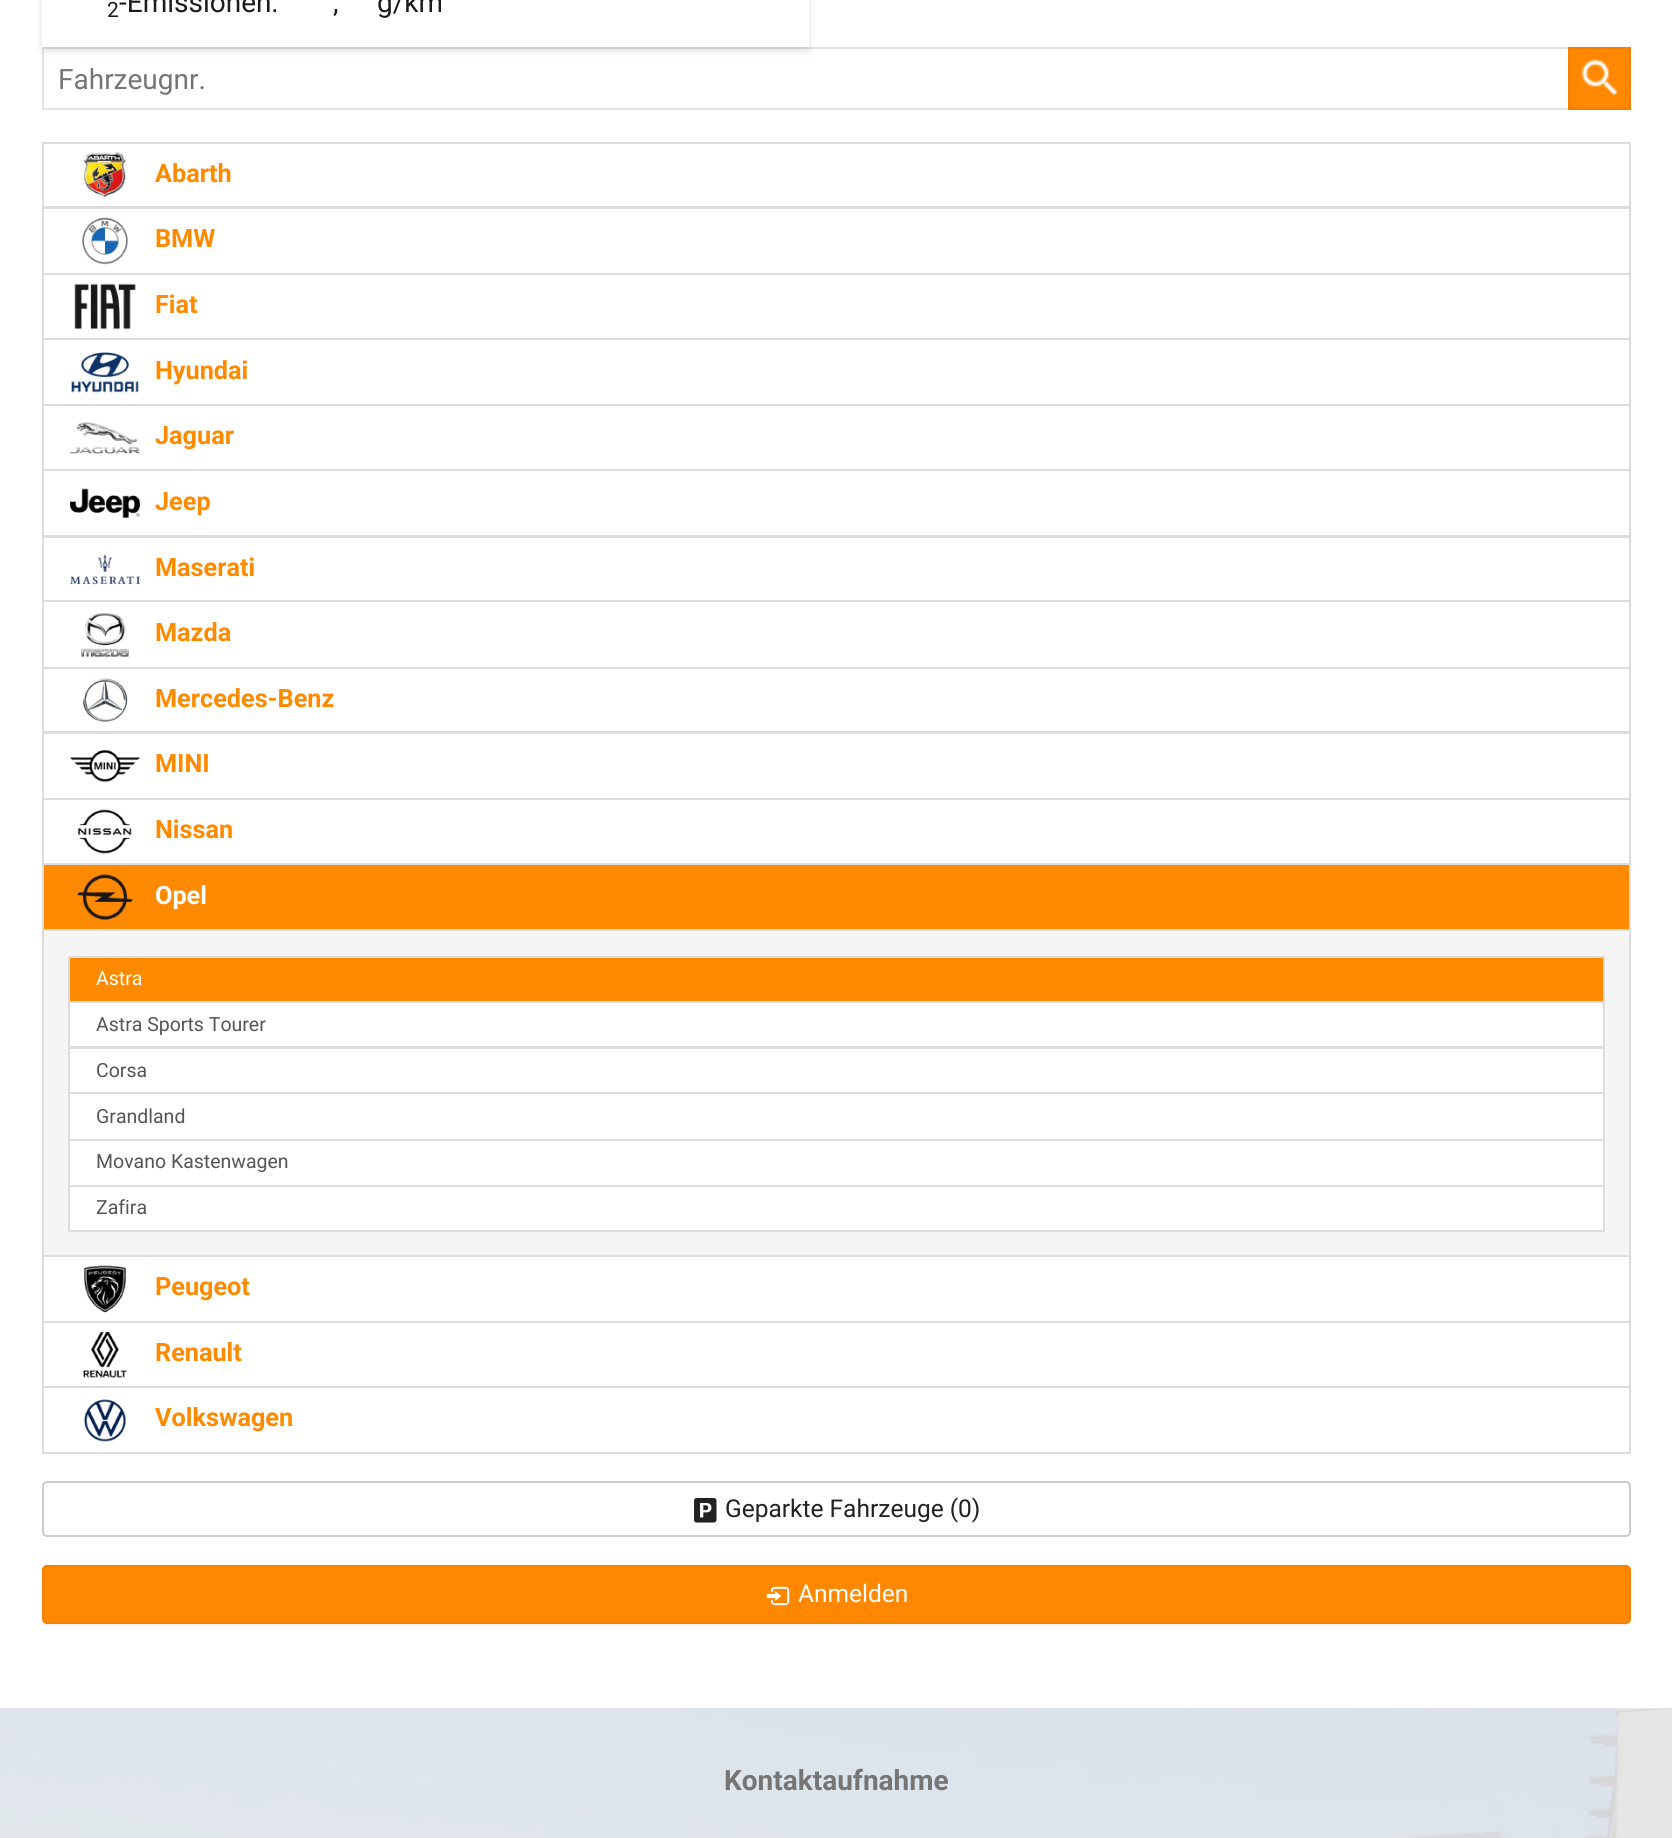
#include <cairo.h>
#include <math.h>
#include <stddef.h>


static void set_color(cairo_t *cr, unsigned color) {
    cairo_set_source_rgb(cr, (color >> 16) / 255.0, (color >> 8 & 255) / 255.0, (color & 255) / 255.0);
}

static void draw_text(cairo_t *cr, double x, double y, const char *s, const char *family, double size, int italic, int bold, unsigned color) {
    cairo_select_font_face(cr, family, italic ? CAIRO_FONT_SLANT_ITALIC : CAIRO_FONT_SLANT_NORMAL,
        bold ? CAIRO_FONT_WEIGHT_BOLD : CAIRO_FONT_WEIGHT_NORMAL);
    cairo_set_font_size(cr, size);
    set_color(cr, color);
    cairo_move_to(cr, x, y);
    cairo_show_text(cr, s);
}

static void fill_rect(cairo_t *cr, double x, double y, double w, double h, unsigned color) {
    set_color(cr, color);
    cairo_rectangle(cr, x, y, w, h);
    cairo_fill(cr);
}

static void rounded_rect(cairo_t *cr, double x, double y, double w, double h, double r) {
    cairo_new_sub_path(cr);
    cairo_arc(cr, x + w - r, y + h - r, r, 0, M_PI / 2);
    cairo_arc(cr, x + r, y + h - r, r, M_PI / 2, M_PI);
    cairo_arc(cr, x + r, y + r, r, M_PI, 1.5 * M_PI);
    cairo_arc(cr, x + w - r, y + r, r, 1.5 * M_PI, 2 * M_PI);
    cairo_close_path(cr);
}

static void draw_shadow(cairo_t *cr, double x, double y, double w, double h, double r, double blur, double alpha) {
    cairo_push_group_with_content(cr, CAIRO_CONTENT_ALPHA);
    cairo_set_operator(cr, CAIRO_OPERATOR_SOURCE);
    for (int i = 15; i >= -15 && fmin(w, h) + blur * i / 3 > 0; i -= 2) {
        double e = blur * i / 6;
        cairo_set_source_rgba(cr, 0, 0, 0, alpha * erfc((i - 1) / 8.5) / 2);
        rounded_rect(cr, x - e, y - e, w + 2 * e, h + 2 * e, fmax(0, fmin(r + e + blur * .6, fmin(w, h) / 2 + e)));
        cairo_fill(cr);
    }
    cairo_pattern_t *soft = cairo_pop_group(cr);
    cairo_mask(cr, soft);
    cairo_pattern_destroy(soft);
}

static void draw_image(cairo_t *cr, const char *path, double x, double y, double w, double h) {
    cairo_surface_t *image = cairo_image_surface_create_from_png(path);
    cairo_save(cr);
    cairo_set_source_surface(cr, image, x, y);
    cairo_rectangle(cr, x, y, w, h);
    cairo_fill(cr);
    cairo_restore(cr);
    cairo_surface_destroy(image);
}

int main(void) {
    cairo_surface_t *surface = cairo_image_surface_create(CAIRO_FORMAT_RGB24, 1672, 1838);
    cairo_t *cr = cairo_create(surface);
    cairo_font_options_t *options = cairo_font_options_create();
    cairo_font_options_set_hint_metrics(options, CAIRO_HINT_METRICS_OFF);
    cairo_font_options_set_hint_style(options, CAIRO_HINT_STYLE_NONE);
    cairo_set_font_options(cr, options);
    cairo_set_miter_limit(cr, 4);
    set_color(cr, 0xFFFFFF);
    cairo_paint(cr);
    cairo_rectangle(cr, 43, 48, 1587, 61);
    set_color(cr, 0xE4E4E4);
    cairo_stroke(cr);
    set_color(cr, 0x000000);
    draw_shadow(cr, 44, -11, 763, 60, 0, 3.5, 0.05);
    draw_shadow(cr, 42, -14, 767, 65, 0, 4.5, 0.1);
    fill_rect(cr, 42, 0, 767, 47, 0xFFFFFF);
    draw_text(cr, 107, 17, "2", "Roboto", 21, 0, 0, 0x1D1A17);
    draw_text(cr, 119, 12, "-Emissionen:", "Roboto", 28, 0, 0, 0x1D1A17);
    draw_text(cr, 333, 12, ",", "Roboto", 28, 0, 0, 0x1D1A17);
    draw_text(cr, 377, 12, "g/km", "Roboto", 28, 0, 0, 0x1D1A17);
    draw_text(cr, 58, 89, "Fahrzeugnr.", "Roboto", 28, 0, 0, 0x757575);
    fill_rect(cr, 1570, 49, 59, 59, 0xFF8800);
    draw_image(cr, "assets/img1.png", 1581, 59, 37, 37);
    cairo_rectangle(cr, 1569, 48, 61, 61);
    set_color(cr, 0xF28100);
    cairo_stroke(cr);
    cairo_rectangle(cr, 43, 143, 1587, 64);
    set_color(cr, 0xDDDDDD);
    cairo_stroke(cr);
    draw_image(cr, "assets/img2.png", 83, 152, 43, 46);
    draw_text(cr, 155, 182, "Abarth", "Roboto", 25.25, 0, 1, 0xFF8A00);
    cairo_rectangle(cr, 43, 208, 1587, 66);
    set_color(cr, 0xDDDDDD);
    cairo_stroke(cr);
    draw_image(cr, "assets/img3.png", 82, 217, 46, 48);
    draw_text(cr, 155, 247, "BMW", "Roboto", 25.25, 0, 1, 0xFF8A00);
    cairo_rectangle(cr, 43, 274, 1587, 65);
    set_color(cr, 0xDDDDDD);
    cairo_stroke(cr);
    draw_image(cr, "assets/img4.png", 74, 283, 62, 47);
    draw_text(cr, 155, 313, "Fiat", "Roboto", 25.25, 0, 1, 0xFF8A00);
    cairo_rectangle(cr, 43, 339, 1587, 66);
    set_color(cr, 0xDDDDDD);
    cairo_stroke(cr);
    draw_image(cr, "assets/img5.png", 71, 352, 68, 41);
    draw_text(cr, 155, 379, "Hyundai", "Roboto", 25.25, 0, 1, 0xFF8A00);
    cairo_rectangle(cr, 43, 405, 1587, 65);
    set_color(cr, 0xDDDDDD);
    cairo_stroke(cr);
    draw_image(cr, "assets/img6.png", 70, 422, 70, 32);
    draw_text(cr, 155, 444, "Jaguar", "Roboto", 25.25, 0, 1, 0xFF8A00);
    cairo_rectangle(cr, 43, 470, 1587, 66);
    set_color(cr, 0xDDDDDD);
    cairo_stroke(cr);
    draw_image(cr, "assets/img7.png", 70, 488, 70, 31);
    draw_text(cr, 155, 510, "Jeep", "Roboto", 25.25, 0, 1, 0xFF8A00);
    cairo_rectangle(cr, 43, 537, 1587, 64);
    set_color(cr, 0xDDDDDD);
    cairo_stroke(cr);
    draw_image(cr, "assets/img8.png", 70, 554, 70, 31);
    draw_text(cr, 155, 576, "Maserati", "Roboto", 25.25, 0, 1, 0xFF8A00);
    cairo_rectangle(cr, 43, 601, 1587, 67);
    set_color(cr, 0xDDDDDD);
    cairo_stroke(cr);
    draw_image(cr, "assets/img9.png", 81, 612, 48, 46);
    draw_text(cr, 155, 641, "Mazda", "Roboto", 25.25, 0, 1, 0xFF8A00);
    cairo_rectangle(cr, 43, 668, 1587, 64);
    set_color(cr, 0xDDDDDD);
    cairo_stroke(cr);
    draw_image(cr, "assets/img10.png", 82, 678, 46, 45);
    draw_text(cr, 155, 707, "Mercedes-Benz", "Roboto", 25.25, 0, 1, 0xFF8A00);
    cairo_rectangle(cr, 43, 733, 1587, 66);
    set_color(cr, 0xDDDDDD);
    cairo_stroke(cr);
    draw_image(cr, "assets/img11.png", 70, 750, 70, 32);
    draw_text(cr, 155, 772, "MINI", "Roboto", 25.25, 0, 1, 0xFF8A00);
    cairo_rectangle(cr, 43, 799, 1587, 65);
    set_color(cr, 0xDDDDDD);
    cairo_stroke(cr);
    draw_image(cr, "assets/img12.png", 77, 809, 55, 45);
    draw_text(cr, 155, 838, "Nissan", "Roboto", 25.25, 0, 1, 0xFF8A00);
    set_color(cr, 0xF5F5F5);
    cairo_rectangle(cr, 43, 930, 1587, 326);
    cairo_fill_preserve(cr);
    set_color(cr, 0xDDDDDD);
    cairo_stroke(cr);
    set_color(cr, 0xFF8A00);
    cairo_rectangle(cr, 43, 864, 1587, 66);
    cairo_fill_preserve(cr);
    set_color(cr, 0xDDDDDD);
    cairo_stroke(cr);
    draw_image(cr, "assets/img13.png", 77, 874, 56, 46);
    draw_text(cr, 155, 904, "Opel", "Roboto", 25.25, 0, 1, 0xFFFFFF);
    set_color(cr, 0xFF8A00);
    cairo_rectangle(cr, 69, 957, 1535, 45);
    cairo_fill_preserve(cr);
    set_color(cr, 0xDDDDDD);
    cairo_stroke(cr);
    draw_text(cr, 96, 985, "Astra", "Roboto", 19.5, 0, 0, 0xFFFFFF);
    cairo_rectangle(cr, 69, 1002, 1535, 45);
    cairo_fill_preserve(cr);
    set_color(cr, 0xDDDDDD);
    cairo_stroke(cr);
    draw_text(cr, 96, 1031, "Astra Sports Tourer", "Roboto", 19.5, 0, 0, 0x555555);
    set_color(cr, 0xFFFFFF);
    cairo_rectangle(cr, 69, 1048, 1535, 45);
    cairo_fill_preserve(cr);
    set_color(cr, 0xDDDDDD);
    cairo_stroke(cr);
    draw_text(cr, 96, 1077, "Corsa", "Roboto", 19.5, 0, 0, 0x555555);
    set_color(cr, 0xFFFFFF);
    cairo_rectangle(cr, 69, 1093, 1535, 47);
    cairo_fill_preserve(cr);
    set_color(cr, 0xDDDDDD);
    cairo_stroke(cr);
    draw_text(cr, 96, 1123, "Grandland", "Roboto", 19.5, 0, 0, 0x555555);
    set_color(cr, 0xFFFFFF);
    cairo_rectangle(cr, 69, 1140, 1535, 46);
    cairo_fill_preserve(cr);
    set_color(cr, 0xDDDDDD);
    cairo_stroke(cr);
    draw_text(cr, 96, 1168, "Movano Kastenwagen", "Roboto", 19.5, 0, 0, 0x555555);
    set_color(cr, 0xFFFFFF);
    cairo_rectangle(cr, 69, 1186, 1535, 45);
    cairo_fill_preserve(cr);
    set_color(cr, 0xDDDDDD);
    cairo_stroke(cr);
    draw_text(cr, 96, 1214, "Zafira", "Roboto", 19.5, 0, 0, 0x555555);
    cairo_rectangle(cr, 43, 1256, 1587, 66);
    set_color(cr, 0xDDDDDD);
    cairo_stroke(cr);
    draw_image(cr, "assets/img14.png", 84, 1265, 42, 48);
    draw_text(cr, 155, 1295, "Peugeot", "Roboto", 25.25, 0, 1, 0xFF8A00);
    cairo_rectangle(cr, 43, 1322, 1587, 65);
    set_color(cr, 0xDDDDDD);
    cairo_stroke(cr);
    draw_image(cr, "assets/img15.png", 83, 1332, 44, 46);
    draw_text(cr, 155, 1361, "Renault", "Roboto", 25.25, 0, 1, 0xFF8A00);
    cairo_rectangle(cr, 43, 1387, 1587, 66);
    set_color(cr, 0xDDDDDD);
    cairo_stroke(cr);
    draw_image(cr, "assets/img16.png", 84, 1399, 42, 43);
    draw_text(cr, 155, 1426, "Volkswagen", "Roboto", 25.25, 0, 1, 0xFF8A00);
    rounded_rect(cr, 43, 1482, 1587, 54, 4);
    set_color(cr, 0xCCCCCC);
    cairo_stroke(cr);
    draw_image(cr, "assets/img17.png", 694, 1498, 23, 25);
    draw_text(cr, 725, 1517, "Geparkte Fahrzeuge (0)", "Roboto", 24.5, 0, 0, 0x222222);
    set_color(cr, 0x000000);
    draw_shadow(cr, 42, 1566, 1589, 60, 7, 1, 0.05);
    set_color(cr, 0xFF8800);
    rounded_rect(cr, 43, 1566, 1587, 57, 4);
    cairo_fill_preserve(cr);
    set_color(cr, 0xF28100);
    cairo_stroke(cr);
    draw_image(cr, "assets/img18.png", 766, 1586, 24, 20);
    draw_text(cr, 798, 1602, "Anmelden", "Roboto", 24.5, 0, 0, 0xFFFFFF);
    fill_rect(cr, 0, 1708, 1672, 130, 0xEAEAEA);
    draw_image(cr, "assets/img19.png", 0, 1708, 1672, 130);
    draw_text(cr, 724, 1790, "Kontaktaufnahme", "Roboto", 28, 0, 1, 0x757575);
    cairo_surface_write_to_png(surface, "output.png");
    cairo_font_options_destroy(options);
    cairo_destroy(cr);
    cairo_surface_destroy(surface);
    return 0;
}
